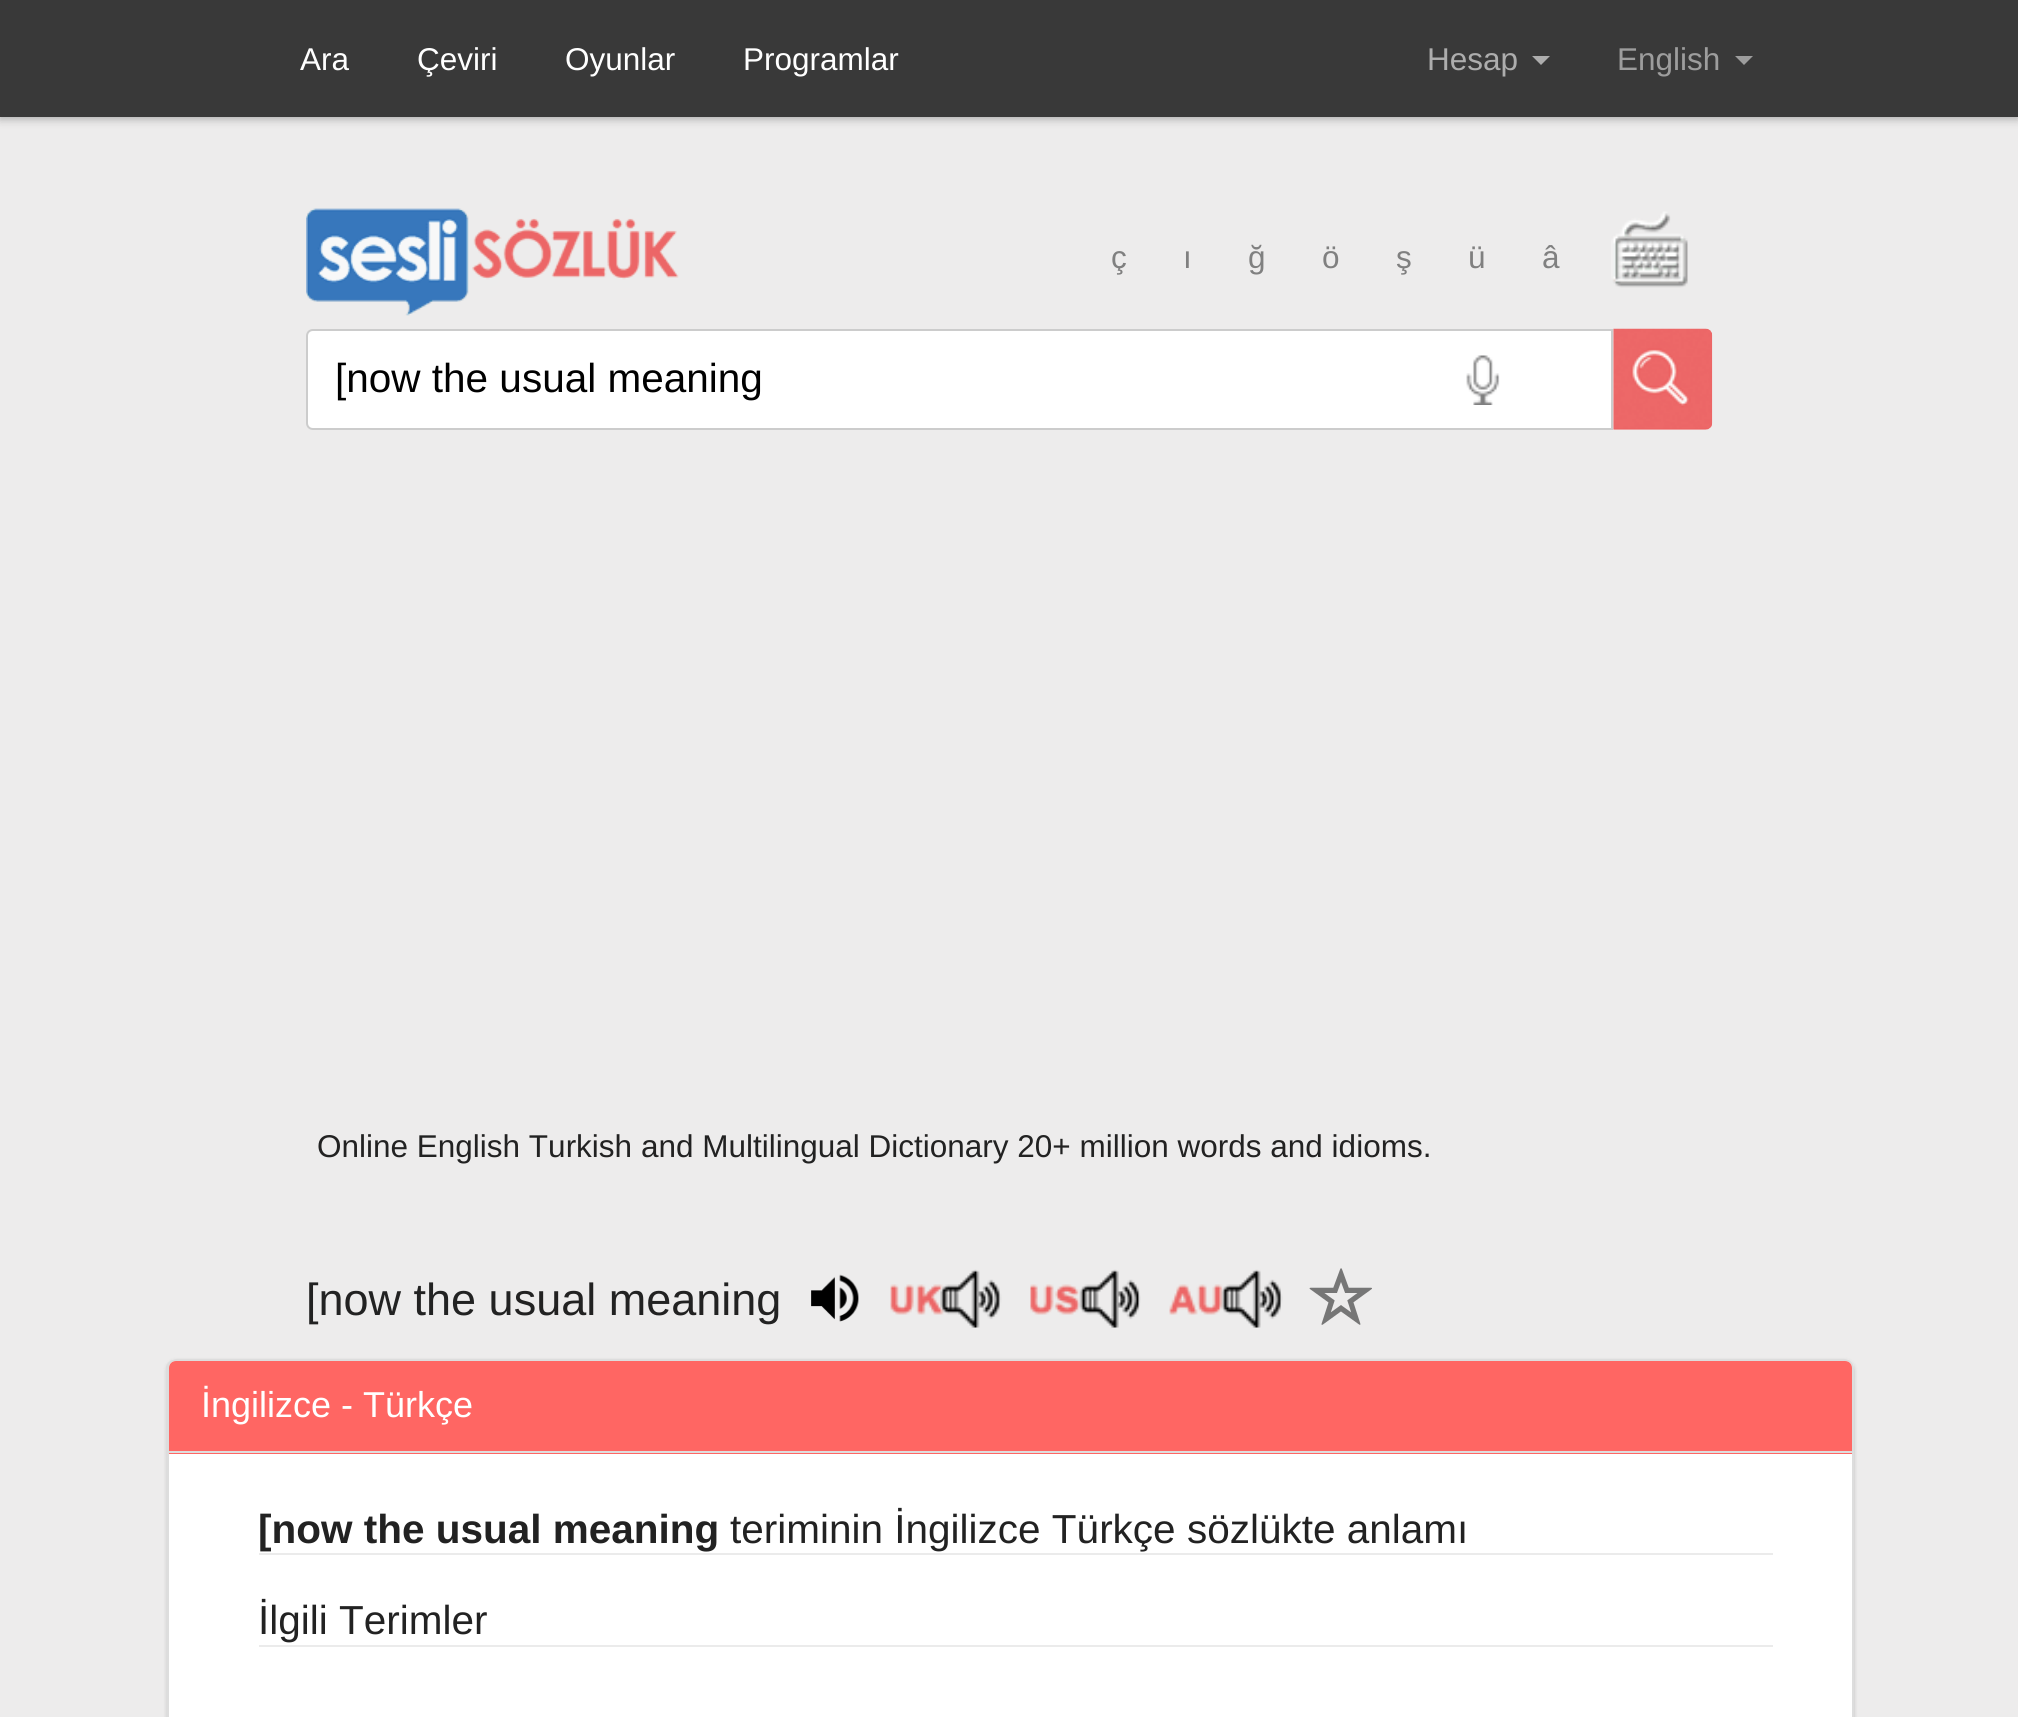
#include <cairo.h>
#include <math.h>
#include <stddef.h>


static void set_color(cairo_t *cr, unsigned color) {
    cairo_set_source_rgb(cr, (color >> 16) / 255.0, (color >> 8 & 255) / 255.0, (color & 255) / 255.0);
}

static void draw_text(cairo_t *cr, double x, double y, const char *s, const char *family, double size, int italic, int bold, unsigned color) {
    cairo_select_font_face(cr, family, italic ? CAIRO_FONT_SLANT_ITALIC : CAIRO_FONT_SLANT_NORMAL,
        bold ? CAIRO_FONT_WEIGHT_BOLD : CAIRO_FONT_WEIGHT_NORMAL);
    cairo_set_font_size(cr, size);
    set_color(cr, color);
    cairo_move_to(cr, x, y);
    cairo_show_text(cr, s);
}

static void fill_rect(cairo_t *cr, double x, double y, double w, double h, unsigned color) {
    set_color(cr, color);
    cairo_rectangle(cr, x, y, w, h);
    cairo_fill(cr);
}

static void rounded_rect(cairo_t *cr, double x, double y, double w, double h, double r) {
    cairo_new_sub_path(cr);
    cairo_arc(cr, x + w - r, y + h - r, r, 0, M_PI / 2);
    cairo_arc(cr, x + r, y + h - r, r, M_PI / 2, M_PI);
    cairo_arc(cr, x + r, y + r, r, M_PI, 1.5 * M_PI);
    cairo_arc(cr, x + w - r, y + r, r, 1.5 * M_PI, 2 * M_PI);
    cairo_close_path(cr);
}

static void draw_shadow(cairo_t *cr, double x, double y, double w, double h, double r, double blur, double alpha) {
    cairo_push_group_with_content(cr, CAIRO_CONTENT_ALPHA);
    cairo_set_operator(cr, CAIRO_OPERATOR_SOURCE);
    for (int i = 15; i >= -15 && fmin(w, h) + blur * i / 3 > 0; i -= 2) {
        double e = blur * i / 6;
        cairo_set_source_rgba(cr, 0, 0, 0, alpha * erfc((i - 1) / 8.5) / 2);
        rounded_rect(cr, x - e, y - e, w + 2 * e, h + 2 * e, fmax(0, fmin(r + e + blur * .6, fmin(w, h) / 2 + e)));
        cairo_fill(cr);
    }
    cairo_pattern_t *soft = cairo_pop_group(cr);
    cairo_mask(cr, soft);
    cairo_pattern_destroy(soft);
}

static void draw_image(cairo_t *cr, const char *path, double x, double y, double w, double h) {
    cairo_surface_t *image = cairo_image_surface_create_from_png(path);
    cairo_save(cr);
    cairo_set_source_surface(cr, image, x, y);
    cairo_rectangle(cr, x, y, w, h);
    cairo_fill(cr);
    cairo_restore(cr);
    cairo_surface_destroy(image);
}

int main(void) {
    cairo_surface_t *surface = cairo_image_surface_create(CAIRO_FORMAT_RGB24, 2018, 1717);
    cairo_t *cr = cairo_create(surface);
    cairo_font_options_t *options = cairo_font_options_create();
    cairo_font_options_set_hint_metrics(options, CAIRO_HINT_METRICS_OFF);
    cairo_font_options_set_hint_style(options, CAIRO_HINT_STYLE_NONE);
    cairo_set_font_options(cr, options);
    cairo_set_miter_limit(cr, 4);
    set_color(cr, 0xEDECEC);
    cairo_paint(cr);
    set_color(cr, 0x0C0C0C);
    draw_shadow(cr, 0, 2, 2018, 117, 0, 4.5, 0.3);
    fill_rect(cr, 0, 0, 2018, 117, 0x393939);
    draw_text(cr, 300, 70, "Ara", "Liberation Sans", 31.5, 0, 0, 0xFFFFFF);
    draw_text(cr, 417, 70, "Çeviri", "Liberation Sans", 31.5, 0, 0, 0xFFFFFF);
    draw_text(cr, 565, 70, "Oyunlar", "Liberation Sans", 31.5, 0, 0, 0xFFFFFF);
    draw_text(cr, 743, 70, "Programlar", "Liberation Sans", 31.5, 0, 0, 0xFFFFFF);
    draw_text(cr, 1427, 70, "Hesap", "Liberation Sans", 31.5, 0, 0, 0xADADAD);
    cairo_new_path(cr);
    cairo_move_to(cr, 1532, 56);
    cairo_line_to(cr, 1550, 56);
    cairo_line_to(cr, 1541, 65);
    cairo_close_path(cr);
    cairo_fill(cr);
    draw_text(cr, 1617, 70, "English", "Liberation Sans", 31.5, 0, 0, 0x9D9D9D);
    cairo_new_path(cr);
    cairo_move_to(cr, 1735, 56);
    cairo_line_to(cr, 1753, 56);
    cairo_line_to(cr, 1744, 65);
    cairo_close_path(cr);
    cairo_fill(cr);
    draw_image(cr, "assets/img1.png", 306, 208, 373, 108);
    draw_text(cr, 1111, 268, "ç", "Liberation Sans", 31.5, 0, 0, 0x808080);
    draw_text(cr, 1183, 268, "ı", "Liberation Sans", 31.5, 0, 0, 0x808080);
    draw_text(cr, 1248, 268, "ğ", "Liberation Sans", 31.5, 0, 0, 0x808080);
    draw_text(cr, 1322, 268, "ö", "Liberation Sans", 31.5, 0, 0, 0x808080);
    draw_text(cr, 1396, 268, "ş", "Liberation Sans", 31.5, 0, 0, 0x808080);
    draw_text(cr, 1468, 268, "ü", "Liberation Sans", 31.5, 0, 0, 0x808080);
    draw_text(cr, 1542, 268, "â", "Liberation Sans", 31.5, 0, 0, 0x808080);
    draw_image(cr, "assets/img2.png", 1611, 211, 77, 77);
    set_color(cr, 0xFFFFFF);
    cairo_new_path(cr);
    cairo_move_to(cr, 313, 330);
    cairo_line_to(cr, 1612, 330);
    cairo_line_to(cr, 1612, 429);
    cairo_line_to(cr, 313, 429);
    cairo_curve_to(cr, 309.5, 429, 307, 426.5, 307, 423);
    cairo_line_to(cr, 307, 336);
    cairo_curve_to(cr, 307, 332.5, 309.5, 330, 313, 330);
    cairo_close_path(cr);
    cairo_fill_preserve(cr);
    set_color(cr, 0xCCCCCC);
    cairo_stroke(cr);
    draw_text(cr, 335, 392, "[now the usual meaning", "Liberation Sans", 40.5, 0, 0, 0x000000);
    draw_image(cr, "assets/img3.png", 1466, 355, 34, 50);
    set_color(cr, 0xEFEFEF);
    cairo_new_path(cr);
    cairo_move_to(cr, 1613, 329);
    cairo_line_to(cr, 1705, 329);
    cairo_curve_to(cr, 1709, 329, 1712, 332, 1712, 336);
    cairo_line_to(cr, 1712, 423);
    cairo_curve_to(cr, 1712, 427, 1709, 430, 1705, 430);
    cairo_line_to(cr, 1613, 430);
    cairo_close_path(cr);
    cairo_fill(cr);
    draw_image(cr, "assets/img4.png", 1613, 328, 100, 102);
    draw_text(cr, 317, 1157, "Online English Turkish and Multilingual Dictionary 20+ million words and idioms.", "Liberation Sans", 31.5, 0, 0, 0x222222);
    draw_text(cr, 306, 1315, "[now the usual meaning", "Liberation Sans", 45, 0, 0, 0x222222);
    draw_image(cr, "assets/img5.png", 811, 1274, 48, 48);
    draw_image(cr, "assets/img6.png", 890, 1269, 112, 59);
    draw_image(cr, "assets/img7.png", 1030, 1269, 111, 59);
    draw_image(cr, "assets/img8.png", 1169, 1269, 114, 59);
    draw_image(cr, "assets/img9.png", 1309, 1268, 63, 57);
    set_color(cr, 0x000000);
    draw_shadow(cr, 167, 1361, 1687, 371, 9, 2, 0.2);
    set_color(cr, 0xFFFFFF);
    rounded_rect(cr, 167, 1359, 1687, 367, 9);
    cairo_fill(cr);
    set_color(cr, 0xDDDDDD);
    cairo_set_fill_rule(cr, CAIRO_FILL_RULE_EVEN_ODD);
    cairo_new_path(cr);
    cairo_move_to(cr, 176, 1359);
    cairo_line_to(cr, 1845, 1359);
    cairo_curve_to(cr, 1850, 1359, 1854, 1363, 1854, 1368);
    cairo_line_to(cr, 1854, 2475);
    cairo_curve_to(cr, 1854, 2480, 1850, 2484, 1845, 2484);
    cairo_line_to(cr, 176, 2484);
    cairo_curve_to(cr, 171, 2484, 166, 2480, 166, 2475);
    cairo_line_to(cr, 166, 1368);
    cairo_curve_to(cr, 166, 1363, 171, 1359, 176, 1359);
    cairo_close_path(cr);
    cairo_move_to(cr, 176, 1361);
    cairo_line_to(cr, 1845, 1361);
    cairo_curve_to(cr, 1849, 1361, 1852, 1364, 1852, 1368);
    cairo_line_to(cr, 1852, 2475);
    cairo_curve_to(cr, 1852, 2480, 1849, 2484, 1845, 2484);
    cairo_line_to(cr, 176, 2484);
    cairo_curve_to(cr, 172, 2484, 169, 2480, 169, 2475);
    cairo_line_to(cr, 169, 1368);
    cairo_curve_to(cr, 169, 1364, 172, 1361, 176, 1361);
    cairo_close_path(cr);
    cairo_fill(cr);
    set_color(cr, 0xFF6663);
    cairo_new_path(cr);
    cairo_move_to(cr, 176, 1361);
    cairo_line_to(cr, 1845, 1361);
    cairo_curve_to(cr, 1849, 1361, 1852, 1364, 1852, 1368);
    cairo_line_to(cr, 1852, 1454);
    cairo_line_to(cr, 169, 1454);
    cairo_line_to(cr, 169, 1368);
    cairo_curve_to(cr, 169, 1364, 172, 1361, 176, 1361);
    cairo_close_path(cr);
    cairo_fill(cr);
    fill_rect(cr, 169, 1451, 1683, 2, 0xDDDDDD);
    draw_text(cr, 201, 1417, "İngilizce - Türkçe", "Liberation Sans", 36, 0, 0, 0xFFFFFF);
    fill_rect(cr, 259, 1553, 1514, 2, 0xEBEBEB);
    draw_text(cr, 258, 1543, "[now the usual meaning", "Liberation Sans", 40.5, 0, 1, 0x222222);
    draw_text(cr, 730, 1543, "teriminin İngilizce Türkçe sözlükte anlamı", "Liberation Sans", 40.5, 0, 0, 0x222222);
    fill_rect(cr, 259, 1645, 1514, 2, 0xEBEBEB);
    draw_text(cr, 258, 1634, "İlgili Terimler", "Liberation Sans", 40.5, 0, 0, 0x222222);
    cairo_surface_write_to_png(surface, "output.png");
    cairo_font_options_destroy(options);
    cairo_destroy(cr);
    cairo_surface_destroy(surface);
    return 0;
}
